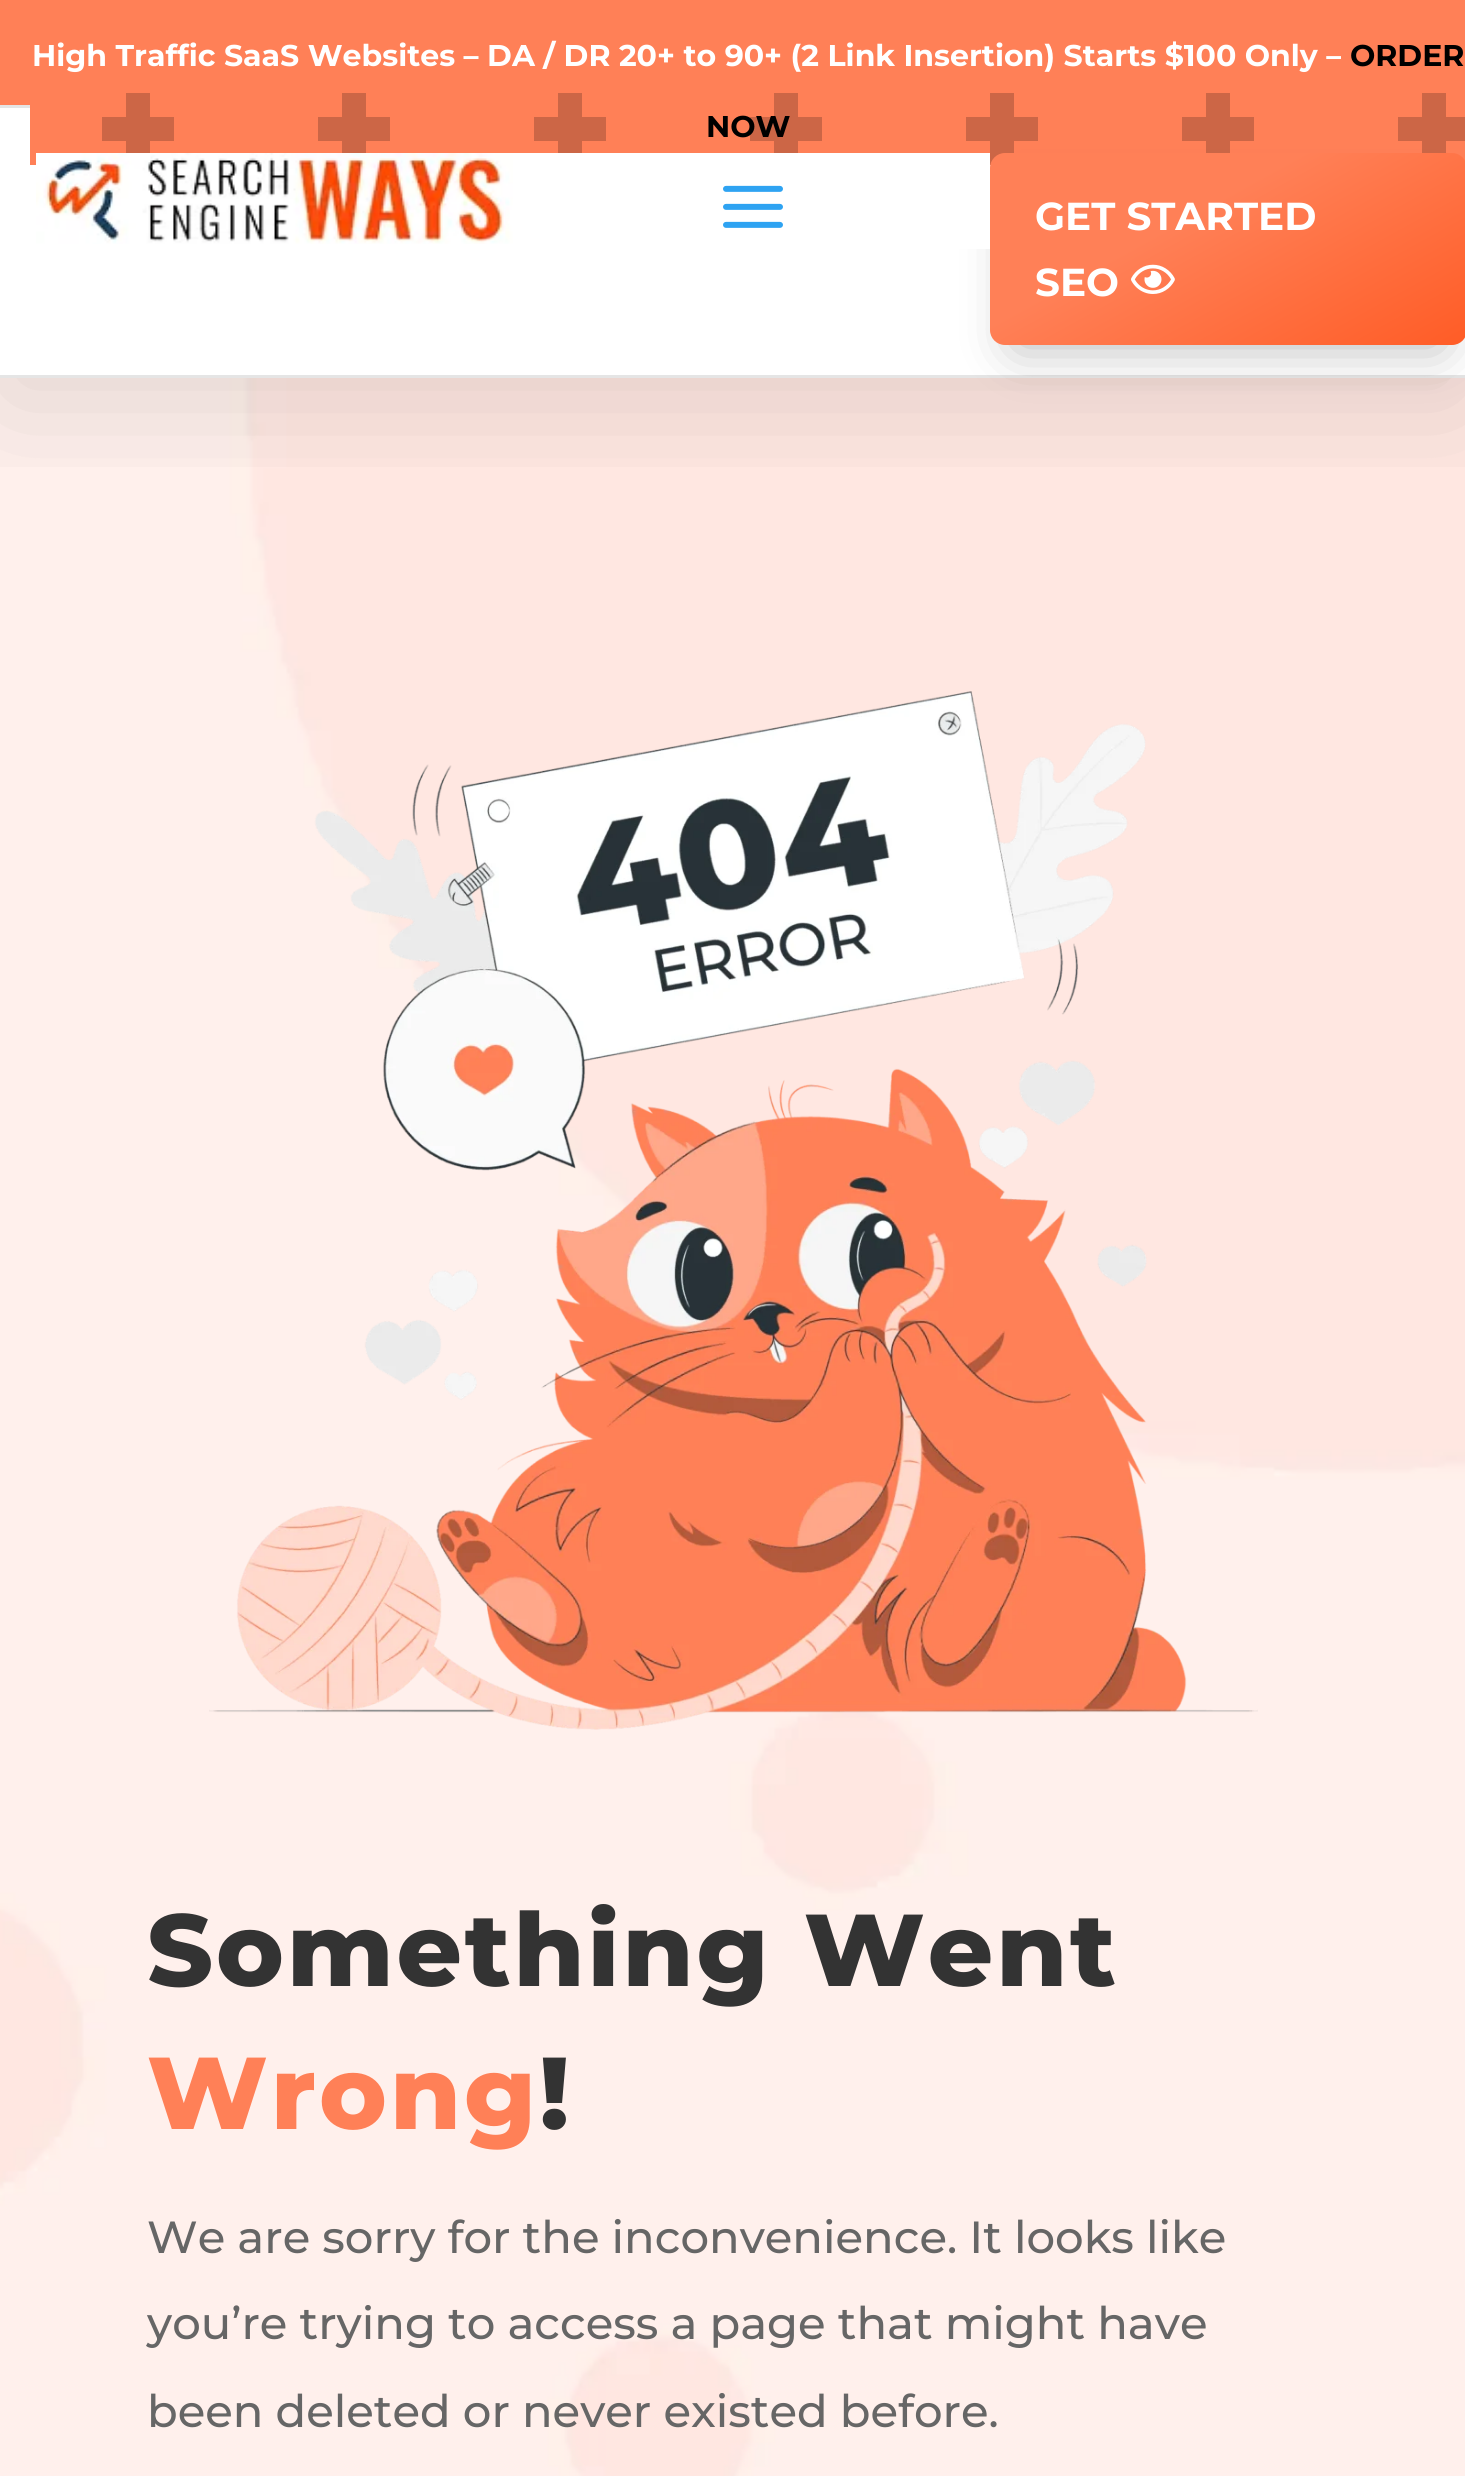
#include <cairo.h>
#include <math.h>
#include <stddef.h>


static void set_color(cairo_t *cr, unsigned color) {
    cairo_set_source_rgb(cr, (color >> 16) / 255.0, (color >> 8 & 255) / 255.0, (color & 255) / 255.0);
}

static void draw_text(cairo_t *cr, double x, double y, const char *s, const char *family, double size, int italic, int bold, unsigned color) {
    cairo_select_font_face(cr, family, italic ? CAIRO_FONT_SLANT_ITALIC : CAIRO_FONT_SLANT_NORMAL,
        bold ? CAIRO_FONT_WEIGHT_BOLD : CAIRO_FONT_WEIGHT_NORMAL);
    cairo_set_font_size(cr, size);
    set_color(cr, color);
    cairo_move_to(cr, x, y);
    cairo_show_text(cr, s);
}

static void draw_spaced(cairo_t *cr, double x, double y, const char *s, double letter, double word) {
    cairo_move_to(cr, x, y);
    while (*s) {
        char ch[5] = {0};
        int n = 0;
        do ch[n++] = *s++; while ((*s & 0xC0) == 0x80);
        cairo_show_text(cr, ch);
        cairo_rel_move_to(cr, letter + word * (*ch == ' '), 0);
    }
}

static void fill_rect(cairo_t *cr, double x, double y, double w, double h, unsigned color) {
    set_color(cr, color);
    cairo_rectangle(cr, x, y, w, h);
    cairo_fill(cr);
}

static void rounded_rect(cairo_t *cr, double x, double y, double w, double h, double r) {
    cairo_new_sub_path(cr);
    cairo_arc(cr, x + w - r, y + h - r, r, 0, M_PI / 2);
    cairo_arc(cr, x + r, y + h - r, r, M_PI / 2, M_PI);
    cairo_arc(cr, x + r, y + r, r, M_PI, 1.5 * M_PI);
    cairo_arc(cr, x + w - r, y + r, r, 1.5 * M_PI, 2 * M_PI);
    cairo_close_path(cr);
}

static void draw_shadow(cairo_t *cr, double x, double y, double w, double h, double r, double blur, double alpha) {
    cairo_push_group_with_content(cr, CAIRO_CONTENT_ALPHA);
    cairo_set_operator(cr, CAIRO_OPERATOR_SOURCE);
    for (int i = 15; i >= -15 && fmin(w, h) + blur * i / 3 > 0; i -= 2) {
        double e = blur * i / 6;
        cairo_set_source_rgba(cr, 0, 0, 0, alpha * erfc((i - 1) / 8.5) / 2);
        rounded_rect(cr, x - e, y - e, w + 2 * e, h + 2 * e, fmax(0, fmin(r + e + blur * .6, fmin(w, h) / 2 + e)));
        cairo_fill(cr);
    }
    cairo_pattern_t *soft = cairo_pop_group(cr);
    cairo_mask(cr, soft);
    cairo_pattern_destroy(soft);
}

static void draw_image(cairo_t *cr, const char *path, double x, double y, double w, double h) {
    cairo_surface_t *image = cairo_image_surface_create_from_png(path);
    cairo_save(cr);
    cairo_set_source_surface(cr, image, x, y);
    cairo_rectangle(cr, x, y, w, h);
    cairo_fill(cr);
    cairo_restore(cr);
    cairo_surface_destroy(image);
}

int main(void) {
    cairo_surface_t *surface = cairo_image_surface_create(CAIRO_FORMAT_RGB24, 1465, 2476);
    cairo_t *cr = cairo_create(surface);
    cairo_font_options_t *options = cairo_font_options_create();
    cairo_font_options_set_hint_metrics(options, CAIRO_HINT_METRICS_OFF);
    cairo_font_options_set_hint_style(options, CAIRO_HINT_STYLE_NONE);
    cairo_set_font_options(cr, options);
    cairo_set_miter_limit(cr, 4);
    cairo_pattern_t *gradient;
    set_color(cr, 0xFFFFFF);
    cairo_paint(cr);
    draw_image(cr, "assets/img5.png", 0, 378, 1465, 2098);
    cairo_save(cr);
    cairo_rectangle(cr, 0, 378, 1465, 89);
    cairo_clip(cr);
    set_color(cr, 0x000000);
    draw_shadow(cr, 0, 24, 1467, 378, 0, 67.5, 0.12);
    cairo_restore(cr);
    fill_rect(cr, 0, 0, 1465, 105, 0xFF8057);
    fill_rect(cr, 0, 105, 30, 3, 0xE5E5E5);
    fill_rect(cr, 30, 105, 1435, 60, 0xFF8057);
    draw_text(cr, 32, 66, "High Traffic SaaS Websites – DA / DR 20+ to 90+ (2 Link Insertion) Starts $100 Only –", "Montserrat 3 Thin", 30, 0, 0, 0xFFFFFF);
    draw_text(cr, 1350, 66, "ORDER", "Montserrat 3 Thin", 30, 0, 0, 0x000000);
    draw_image(cr, "assets/img1.png", 102, 93, 1363, 72);
    draw_text(cr, 706, 137, "NOW", "Montserrat 3 Thin", 30, 0, 0, 0x000000);
    fill_rect(cr, 0, 375, 1465, 3, 0xE5E5E5);
    draw_image(cr, "assets/img2.png", 36, 153, 477, 91);
    set_color(cr, 0x000000);
    draw_shadow(cr, 1017, 207, 423, 138, 0, 27, 0.3);
    fill_rect(cr, 513, 153, 477, 96, 0xFFFFFF);
    draw_image(cr, "assets/img3.png", 723, 185, 60, 43);
    gradient = cairo_pattern_create_linear(1132, 74, 1325, 424);
    cairo_pattern_add_color_stop_rgba(gradient, 0.38, 1, 0.502, 0.341, 1);
    cairo_pattern_add_color_stop_rgba(gradient, 1, 1, 0.361, 0.149, 1);
    cairo_set_source(cr, gradient);
    cairo_pattern_destroy(gradient);
    rounded_rect(cr, 990, 153, 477, 192, 15);
    cairo_fill(cr);
    draw_text(cr, 1035, 230, "GET STARTED", "Montserrat 3 Thin", 39, 0, 0, 0xFFFFFF);
    draw_text(cr, 1035, 296, "SEO", "Montserrat 3 Thin", 39, 0, 0, 0xFFFFFF);
    draw_image(cr, "assets/img4.png", 1131, 264, 44, 30);
    draw_image(cr, "assets/img6.png", 209, 691, 1049, 1039);
    cairo_select_font_face(cr, "Montserrat Thin", CAIRO_FONT_SLANT_NORMAL, CAIRO_FONT_WEIGHT_NORMAL);
    cairo_set_font_size(cr, 102);
    set_color(cr, 0x333333);
    draw_spaced(cr, 147, 1986, "Something Went", 3, 0);
    set_color(cr, 0xFF8057);
    draw_spaced(cr, 147, 2129, "Wrong", 3, 0);
    set_color(cr, 0x333333);
    draw_spaced(cr, 539, 2129, "!", 3, 0);
    draw_text(cr, 147, 2253, "We are sorry for the inconvenience. It looks like", "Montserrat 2 Thin", 45, 0, 0, 0x666666);
    draw_text(cr, 147, 2339, "you’re trying to access a page that might have", "Montserrat 2 Thin", 45, 0, 0, 0x666666);
    draw_text(cr, 147, 2427, "been deleted or never existed before.", "Montserrat 2 Thin", 45, 0, 0, 0x666666);
    cairo_surface_write_to_png(surface, "output.png");
    cairo_font_options_destroy(options);
    cairo_destroy(cr);
    cairo_surface_destroy(surface);
    return 0;
}
